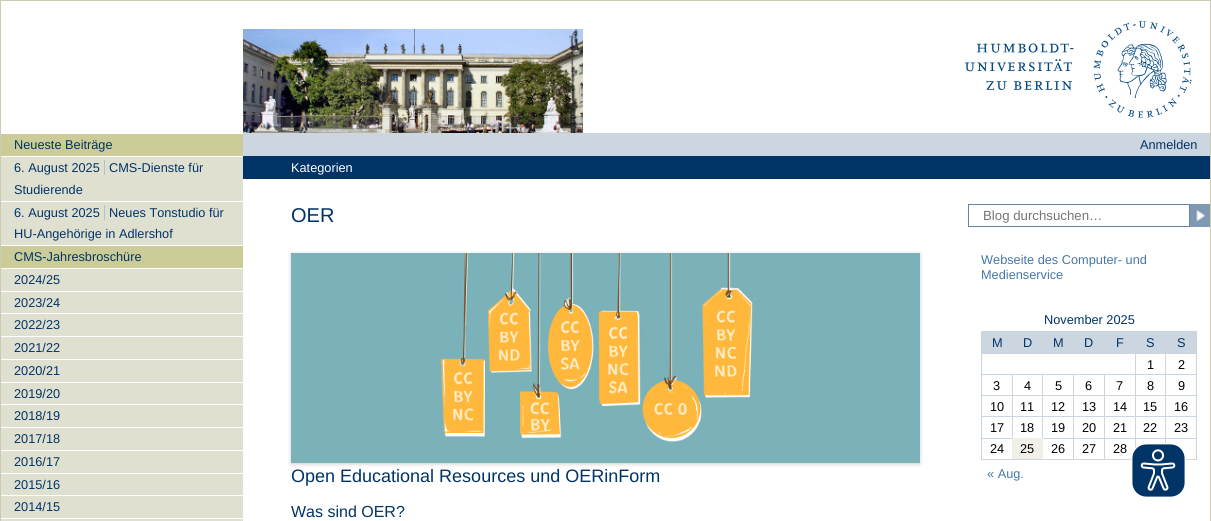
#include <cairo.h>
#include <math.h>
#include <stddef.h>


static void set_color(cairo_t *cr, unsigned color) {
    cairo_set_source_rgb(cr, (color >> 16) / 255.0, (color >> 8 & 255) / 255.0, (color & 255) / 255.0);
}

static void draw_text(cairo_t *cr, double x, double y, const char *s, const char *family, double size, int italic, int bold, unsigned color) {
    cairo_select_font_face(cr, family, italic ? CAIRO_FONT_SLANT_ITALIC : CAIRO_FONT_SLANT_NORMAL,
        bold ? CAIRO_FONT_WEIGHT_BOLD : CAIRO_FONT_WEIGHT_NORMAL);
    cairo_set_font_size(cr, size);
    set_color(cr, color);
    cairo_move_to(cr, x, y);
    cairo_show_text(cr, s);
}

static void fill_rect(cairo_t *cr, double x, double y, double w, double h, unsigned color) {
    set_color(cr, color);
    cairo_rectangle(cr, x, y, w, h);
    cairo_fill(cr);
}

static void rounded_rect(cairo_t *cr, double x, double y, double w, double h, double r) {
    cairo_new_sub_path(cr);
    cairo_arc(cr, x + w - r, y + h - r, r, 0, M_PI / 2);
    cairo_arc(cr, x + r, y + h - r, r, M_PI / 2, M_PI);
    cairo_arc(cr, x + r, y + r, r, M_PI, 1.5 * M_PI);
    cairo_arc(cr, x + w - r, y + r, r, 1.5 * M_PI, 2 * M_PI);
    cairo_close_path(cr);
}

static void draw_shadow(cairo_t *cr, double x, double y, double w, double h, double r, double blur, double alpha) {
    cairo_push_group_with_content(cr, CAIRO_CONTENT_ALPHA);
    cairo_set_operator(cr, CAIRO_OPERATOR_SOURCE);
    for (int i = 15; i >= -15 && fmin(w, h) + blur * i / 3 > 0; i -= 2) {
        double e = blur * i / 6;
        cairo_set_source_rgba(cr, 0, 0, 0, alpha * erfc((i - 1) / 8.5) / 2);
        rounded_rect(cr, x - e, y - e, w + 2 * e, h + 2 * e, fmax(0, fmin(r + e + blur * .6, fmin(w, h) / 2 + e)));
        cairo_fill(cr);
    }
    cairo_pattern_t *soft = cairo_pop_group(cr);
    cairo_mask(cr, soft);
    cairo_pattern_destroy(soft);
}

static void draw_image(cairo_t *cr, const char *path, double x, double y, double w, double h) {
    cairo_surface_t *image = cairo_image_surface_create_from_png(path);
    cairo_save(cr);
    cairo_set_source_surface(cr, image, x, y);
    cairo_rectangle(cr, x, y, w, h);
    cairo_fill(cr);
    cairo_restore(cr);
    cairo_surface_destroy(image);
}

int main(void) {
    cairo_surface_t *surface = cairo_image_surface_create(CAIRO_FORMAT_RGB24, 1211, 521);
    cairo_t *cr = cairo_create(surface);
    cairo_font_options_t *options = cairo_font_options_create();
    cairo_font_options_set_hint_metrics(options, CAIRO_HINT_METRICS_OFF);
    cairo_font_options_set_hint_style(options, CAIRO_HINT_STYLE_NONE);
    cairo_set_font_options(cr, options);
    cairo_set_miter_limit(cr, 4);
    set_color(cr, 0xFFFFFF);
    cairo_paint(cr);
    cairo_rectangle(cr, 0.5, 0.5, 1210, 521);
    set_color(cr, 0xCCCCB2);
    cairo_set_line_width(cr, 1);
    cairo_stroke(cr);
    fill_rect(cr, 1, 157, 242, 88, 0xE0E0D1);
    fill_rect(cr, 1, 134, 242, 22, 0xCCCC99);
    draw_text(cr, 14, 149, "Neueste Beiträge", "Liberation Sans", 12.75, 0, 0, 0x003366);
    fill_rect(cr, 1, 201, 242, 1, 0xFFFFFF);
    draw_text(cr, 14, 172, "6. August 2025", "Liberation Sans", 12.75, 0, 0, 0x003366);
    fill_rect(cr, 104, 160, 1, 15, 0xB2C1D1);
    draw_text(cr, 109, 172, "CMS-Dienste für", "Liberation Sans", 12.75, 0, 0, 0x003366);
    draw_text(cr, 14, 194, "Studierende", "Liberation Sans", 12.75, 0, 0, 0x003366);
    draw_text(cr, 14, 217, "6. August 2025", "Liberation Sans", 12.75, 0, 0, 0x003366);
    fill_rect(cr, 104, 205, 1, 15, 0xB2C1D1);
    draw_text(cr, 109, 217, "Neues Tonstudio für", "Liberation Sans", 12.75, 0, 0, 0x003366);
    draw_text(cr, 14, 238, "HU-Angehörige in Adlershof", "Liberation Sans", 12.75, 0, 0, 0x003366);
    fill_rect(cr, 1, 269, 242, 252, 0xE0E0D1);
    fill_rect(cr, 1, 246, 242, 22, 0xCCCC99);
    draw_text(cr, 14, 261, "CMS-Jahresbroschüre", "Liberation Sans", 12.75, 0, 0, 0x003366);
    fill_rect(cr, 1, 291, 242, 1, 0xFFFFFF);
    draw_text(cr, 14, 284, "2024/25", "Liberation Sans", 12.75, 0, 0, 0x003366);
    fill_rect(cr, 1, 313, 242, 1, 0xFFFFFF);
    draw_text(cr, 14, 307, "2023/24", "Liberation Sans", 12.75, 0, 0, 0x003366);
    fill_rect(cr, 1, 336, 242, 1, 0xFFFFFF);
    draw_text(cr, 14, 329, "2022/23", "Liberation Sans", 12.75, 0, 0, 0x003366);
    fill_rect(cr, 1, 359, 242, 1, 0xFFFFFF);
    draw_text(cr, 14, 352, "2021/22", "Liberation Sans", 12.75, 0, 0, 0x003366);
    fill_rect(cr, 1, 382, 242, 1, 0xFFFFFF);
    draw_text(cr, 14, 375, "2020/21", "Liberation Sans", 12.75, 0, 0, 0x003366);
    fill_rect(cr, 1, 404, 242, 1, 0xFFFFFF);
    draw_text(cr, 14, 398, "2019/20", "Liberation Sans", 12.75, 0, 0, 0x003366);
    fill_rect(cr, 1, 427, 242, 1, 0xFFFFFF);
    draw_text(cr, 14, 420, "2018/19", "Liberation Sans", 12.75, 0, 0, 0x003366);
    fill_rect(cr, 1, 450, 242, 1, 0xFFFFFF);
    draw_text(cr, 14, 443, "2017/18", "Liberation Sans", 12.75, 0, 0, 0x003366);
    fill_rect(cr, 1, 473, 242, 1, 0xFFFFFF);
    draw_text(cr, 14, 466, "2016/17", "Liberation Sans", 12.75, 0, 0, 0x003366);
    fill_rect(cr, 1, 495, 242, 1, 0xFFFFFF);
    draw_text(cr, 14, 489, "2015/16", "Liberation Sans", 12.75, 0, 0, 0x003366);
    fill_rect(cr, 1, 518, 242, 1, 0xFFFFFF);
    draw_text(cr, 14, 511, "2014/15", "Liberation Sans", 12.75, 0, 0, 0x003366);
    draw_text(cr, 291, 222, "OER", "Liberation Sans", 20, 0, 0, 0x003366);
    set_color(cr, 0x000000);
    draw_shadow(cr, 291, 254, 629, 210, 0, 2, 0.2);
    draw_image(cr, "assets/img1.png", 291, 253, 629, 210);
    draw_text(cr, 291, 482, "Open Educational Resources und OERinForm", "Liberation Sans", 18, 0, 0, 0x003366);
    draw_text(cr, 291, 517, "Was sind OER?", "Liberation Sans", 16, 0, 0, 0x003366);
    cairo_rectangle(cr, 968.5, 204.5, 221, 22);
    set_color(cr, 0x6685A3);
    cairo_stroke(cr);
    draw_text(cr, 983, 220, "Blog durchsuchen…", "Liberation Sans", 13.25, 0, 0, 0x757575);
    draw_image(cr, "assets/img2.png", 1190, 204, 20, 23);
    draw_text(cr, 981, 264, "Webseite des Computer- und", "Liberation Sans", 12.75, 0, 0, 0x4477AA);
    draw_text(cr, 981, 279, "Medienservice", "Liberation Sans", 12.75, 0, 0, 0x4477AA);
    draw_text(cr, 1044, 324, "November 2025", "Liberation Sans", 12.75, 0, 0, 0x003366);
    fill_rect(cr, 981, 331, 216, 23, 0xCCD6E0);
    draw_text(cr, 992, 347, "M", "Liberation Sans", 12.75, 0, 0, 0x003366);
    draw_text(cr, 1023, 347, "D", "Liberation Sans", 12.75, 0, 0, 0x003366);
    draw_text(cr, 1053, 347, "M", "Liberation Sans", 12.75, 0, 0, 0x003366);
    draw_text(cr, 1084, 347, "D", "Liberation Sans", 12.75, 0, 0, 0x003366);
    draw_text(cr, 1116, 347, "F", "Liberation Sans", 12.75, 0, 0, 0x003366);
    draw_text(cr, 1146, 347, "S", "Liberation Sans", 12.75, 0, 0, 0x003366);
    draw_text(cr, 1177, 347, "S", "Liberation Sans", 12.75, 0, 0, 0x003366);
    fill_rect(cr, 1165, 374, 32, 1, 0xCCD6E0);
    fill_rect(cr, 1165, 395, 32, 1, 0xCCD6E0);
    fill_rect(cr, 1165, 416, 32, 1, 0xCCD6E0);
    fill_rect(cr, 1165, 438, 32, 1, 0xCCD6E0);
    fill_rect(cr, 1165, 438, 1, 5, 0xCCD6E0);
    fill_rect(cr, 1135, 438, 31, 1, 0xCCD6E0);
    fill_rect(cr, 1165, 416, 1, 23, 0xCCD6E0);
    fill_rect(cr, 1135, 416, 31, 1, 0xCCD6E0);
    fill_rect(cr, 1165, 395, 1, 22, 0xCCD6E0);
    fill_rect(cr, 1135, 395, 31, 1, 0xCCD6E0);
    fill_rect(cr, 1165, 374, 1, 22, 0xCCD6E0);
    fill_rect(cr, 1135, 374, 31, 1, 0xCCD6E0);
    fill_rect(cr, 1135, 438, 1, 10, 0xCCD6E0);
    fill_rect(cr, 1104, 438, 32, 1, 0xCCD6E0);
    fill_rect(cr, 1135, 416, 1, 23, 0xCCD6E0);
    fill_rect(cr, 1104, 416, 32, 1, 0xCCD6E0);
    fill_rect(cr, 1135, 395, 1, 22, 0xCCD6E0);
    fill_rect(cr, 1104, 395, 32, 1, 0xCCD6E0);
    fill_rect(cr, 1135, 374, 1, 22, 0xCCD6E0);
    fill_rect(cr, 1104, 374, 32, 1, 0xCCD6E0);
    fill_rect(cr, 1135, 353, 1, 22, 0xCCD6E0);
    draw_text(cr, 1147, 369, "1", "Liberation Sans", 12.75, 0, 0, 0x000000);
    fill_rect(cr, 1165, 353, 1, 22, 0xCCD6E0);
    draw_text(cr, 1178, 369, "2", "Liberation Sans", 12.75, 0, 0, 0x000000);
    fill_rect(cr, 1104, 459, 32, 1, 0xCCD6E0);
    fill_rect(cr, 1104, 438, 1, 22, 0xCCD6E0);
    fill_rect(cr, 1073, 438, 32, 1, 0xCCD6E0);
    fill_rect(cr, 1104, 416, 1, 23, 0xCCD6E0);
    fill_rect(cr, 1073, 416, 32, 1, 0xCCD6E0);
    fill_rect(cr, 1104, 395, 1, 22, 0xCCD6E0);
    fill_rect(cr, 1073, 395, 32, 1, 0xCCD6E0);
    fill_rect(cr, 1104, 374, 1, 22, 0xCCD6E0);
    fill_rect(cr, 1073, 374, 32, 1, 0xCCD6E0);
    fill_rect(cr, 1073, 459, 32, 1, 0xCCD6E0);
    fill_rect(cr, 1073, 438, 1, 22, 0xCCD6E0);
    fill_rect(cr, 1042, 438, 32, 1, 0xCCD6E0);
    fill_rect(cr, 1073, 416, 1, 23, 0xCCD6E0);
    fill_rect(cr, 1042, 416, 32, 1, 0xCCD6E0);
    fill_rect(cr, 1073, 395, 1, 22, 0xCCD6E0);
    fill_rect(cr, 1042, 395, 32, 1, 0xCCD6E0);
    fill_rect(cr, 1073, 374, 1, 22, 0xCCD6E0);
    fill_rect(cr, 1042, 374, 32, 1, 0xCCD6E0);
    fill_rect(cr, 1042, 416, 1, 23, 0xCCD6E0);
    fill_rect(cr, 1012, 416, 31, 1, 0xCCD6E0);
    fill_rect(cr, 1042, 395, 1, 22, 0xCCD6E0);
    fill_rect(cr, 1012, 395, 31, 1, 0xCCD6E0);
    fill_rect(cr, 1042, 374, 1, 22, 0xCCD6E0);
    fill_rect(cr, 1012, 374, 31, 1, 0xCCD6E0);
    fill_rect(cr, 981, 438, 32, 1, 0xCCD6E0);
    fill_rect(cr, 1012, 416, 1, 23, 0xCCD6E0);
    fill_rect(cr, 981, 416, 32, 1, 0xCCD6E0);
    fill_rect(cr, 1012, 395, 1, 22, 0xCCD6E0);
    fill_rect(cr, 981, 395, 32, 1, 0xCCD6E0);
    fill_rect(cr, 1012, 374, 1, 22, 0xCCD6E0);
    fill_rect(cr, 981, 374, 32, 1, 0xCCD6E0);
    fill_rect(cr, 981, 459, 93, 1, 0xCCD6E0);
    fill_rect(cr, 981, 438, 1, 22, 0xCCD6E0);
    fill_rect(cr, 981, 416, 1, 23, 0xCCD6E0);
    fill_rect(cr, 981, 395, 1, 22, 0xCCD6E0);
    fill_rect(cr, 981, 353, 1, 43, 0xCCD6E0);
    draw_text(cr, 993, 390, "3", "Liberation Sans", 12.75, 0, 0, 0x000000);
    draw_text(cr, 1024, 390, "4", "Liberation Sans", 12.75, 0, 0, 0x000000);
    draw_text(cr, 1055, 390, "5", "Liberation Sans", 12.75, 0, 0, 0x000000);
    draw_text(cr, 1085, 390, "6", "Liberation Sans", 12.75, 0, 0, 0x000000);
    draw_text(cr, 1116, 390, "7", "Liberation Sans", 12.75, 0, 0, 0x000000);
    draw_text(cr, 1147, 390, "8", "Liberation Sans", 12.75, 0, 0, 0x000000);
    fill_rect(cr, 1196, 438, 1, 22, 0xCCD6E0);
    fill_rect(cr, 1196, 416, 1, 23, 0xCCD6E0);
    fill_rect(cr, 1196, 395, 1, 22, 0xCCD6E0);
    fill_rect(cr, 1196, 353, 1, 43, 0xCCD6E0);
    draw_text(cr, 1178, 390, "9", "Liberation Sans", 12.75, 0, 0, 0x000000);
    draw_text(cr, 990, 411, "10", "Liberation Sans", 12.75, 0, 0, 0x000000);
    draw_text(cr, 1020, 411, "11", "Liberation Sans", 12.75, 0, 0, 0x000000);
    draw_text(cr, 1051, 411, "12", "Liberation Sans", 12.75, 0, 0, 0x000000);
    draw_text(cr, 1082, 411, "13", "Liberation Sans", 12.75, 0, 0, 0x000000);
    draw_text(cr, 1113, 411, "14", "Liberation Sans", 12.75, 0, 0, 0x000000);
    draw_text(cr, 1143, 411, "15", "Liberation Sans", 12.75, 0, 0, 0x000000);
    draw_text(cr, 1174, 411, "16", "Liberation Sans", 12.75, 0, 0, 0x000000);
    draw_text(cr, 990, 432, "17", "Liberation Sans", 12.75, 0, 0, 0x000000);
    draw_text(cr, 1020, 432, "18", "Liberation Sans", 12.75, 0, 0, 0x000000);
    draw_text(cr, 1051, 432, "19", "Liberation Sans", 12.75, 0, 0, 0x000000);
    draw_text(cr, 1082, 432, "20", "Liberation Sans", 12.75, 0, 0, 0x000000);
    draw_text(cr, 1113, 432, "21", "Liberation Sans", 12.75, 0, 0, 0x000000);
    draw_text(cr, 1143, 432, "22", "Liberation Sans", 12.75, 0, 0, 0x000000);
    draw_text(cr, 1174, 432, "23", "Liberation Sans", 12.75, 0, 0, 0x000000);
    draw_text(cr, 990, 453, "24", "Liberation Sans", 12.75, 0, 0, 0x000000);
    fill_rect(cr, 1012, 438, 31, 21, 0xF0F0E8);
    draw_text(cr, 1020, 453, "25", "Liberation Sans", 12.75, 0, 0, 0x000000);
    draw_text(cr, 1051, 453, "26", "Liberation Sans", 12.75, 0, 0, 0x000000);
    draw_text(cr, 1082, 453, "27", "Liberation Sans", 12.75, 0, 0, 0x000000);
    draw_text(cr, 1113, 453, "28", "Liberation Sans", 12.75, 0, 0, 0x000000);
    fill_rect(cr, 1186, 459, 11, 1, 0xCCD6E0);
    draw_text(cr, 987, 478, "« Aug.", "Liberation Sans", 12.75, 0, 0, 0x4477AA);
    draw_image(cr, "assets/img3.png", 243, 29, 340, 104);
    draw_image(cr, "assets/img4.png", 965, 21, 227, 97);
    fill_rect(cr, 243, 133, 967, 23, 0xCCD6E0);
    draw_text(cr, 1140, 149, "Anmelden", "Liberation Sans", 12.75, 0, 0, 0x003366);
    fill_rect(cr, 243, 156, 967, 23, 0x003366);
    draw_text(cr, 291, 172, "Kategorien", "Liberation Sans", 12.75, 0, 0, 0xFFFFFF);
    draw_image(cr, "assets/img5.png", 1131, 443, 55, 55);
    cairo_surface_write_to_png(surface, "output.png");
    cairo_font_options_destroy(options);
    cairo_destroy(cr);
    cairo_surface_destroy(surface);
    return 0;
}
